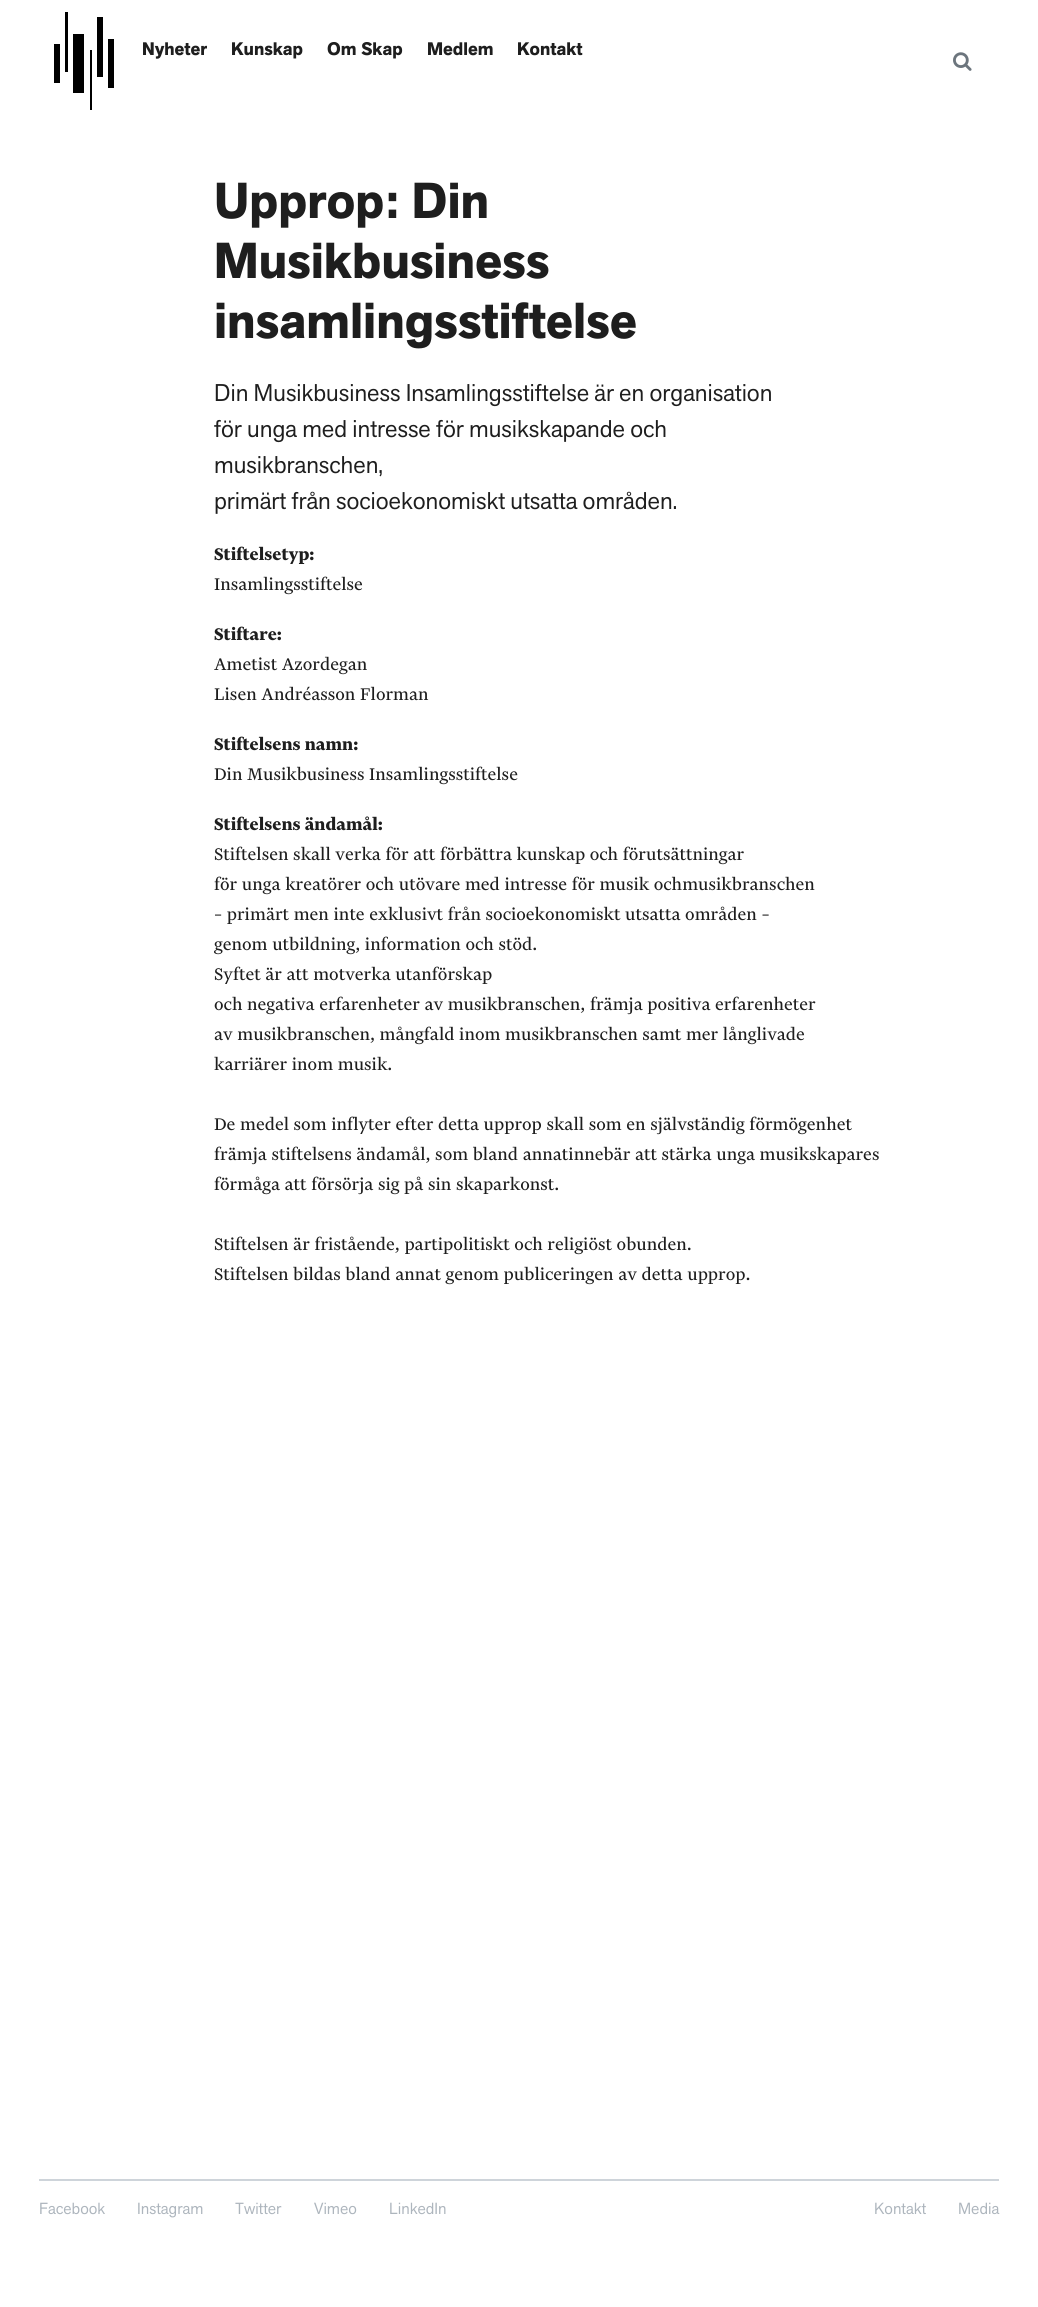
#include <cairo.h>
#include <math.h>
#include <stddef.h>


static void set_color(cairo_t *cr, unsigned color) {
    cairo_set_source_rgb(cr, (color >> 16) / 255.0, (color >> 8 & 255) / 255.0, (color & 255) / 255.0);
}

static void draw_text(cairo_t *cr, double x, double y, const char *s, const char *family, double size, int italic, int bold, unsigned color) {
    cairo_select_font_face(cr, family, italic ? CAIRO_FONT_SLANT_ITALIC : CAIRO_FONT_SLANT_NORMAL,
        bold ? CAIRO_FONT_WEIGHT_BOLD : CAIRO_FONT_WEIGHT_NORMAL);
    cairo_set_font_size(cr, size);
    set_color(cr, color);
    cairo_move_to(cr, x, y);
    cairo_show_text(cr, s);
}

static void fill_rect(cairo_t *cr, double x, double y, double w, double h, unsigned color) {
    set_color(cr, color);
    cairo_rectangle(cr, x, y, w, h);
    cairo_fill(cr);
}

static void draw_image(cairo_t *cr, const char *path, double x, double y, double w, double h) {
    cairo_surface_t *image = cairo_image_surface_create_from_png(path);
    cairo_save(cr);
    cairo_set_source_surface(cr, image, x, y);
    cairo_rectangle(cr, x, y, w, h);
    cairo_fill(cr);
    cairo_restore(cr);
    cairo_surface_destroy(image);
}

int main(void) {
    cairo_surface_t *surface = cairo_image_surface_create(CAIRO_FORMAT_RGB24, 1038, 2307);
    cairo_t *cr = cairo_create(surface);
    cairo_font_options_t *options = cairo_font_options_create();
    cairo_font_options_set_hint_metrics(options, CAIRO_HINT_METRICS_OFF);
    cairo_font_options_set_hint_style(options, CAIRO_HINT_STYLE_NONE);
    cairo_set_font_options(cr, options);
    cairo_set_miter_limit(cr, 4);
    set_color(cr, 0xFFFFFF);
    cairo_paint(cr);
    fill_rect(cr, 54, 44, 6, 39, 0x000000);
    fill_rect(cr, 65, 12, 3, 60, 0x000000);
    fill_rect(cr, 73, 34, 11, 59, 0x000000);
    fill_rect(cr, 90, 50, 2, 60, 0x000000);
    fill_rect(cr, 97, 17, 6, 60, 0x000000);
    fill_rect(cr, 108, 39, 6, 49, 0x000000);
    draw_text(cr, 142, 55, "Nyheter", "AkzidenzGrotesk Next", 18, 0, 1, 0x1E1E1E);
    draw_text(cr, 231, 55, "Kunskap", "AkzidenzGrotesk Next", 18, 0, 1, 0x1E1E1E);
    draw_text(cr, 327, 55, "Om Skap", "AkzidenzGrotesk Next", 18, 0, 1, 0x1E1E1E);
    draw_text(cr, 427, 55, "Medlem", "AkzidenzGrotesk Next", 18, 0, 1, 0x1E1E1E);
    draw_text(cr, 517, 55, "Kontakt", "AkzidenzGrotesk Next", 18, 0, 1, 0x1E1E1E);
    draw_image(cr, "assets/img1.png", 953, 52, 19, 19);
    draw_text(cr, 214, 218, "Upprop: Din", "AkzidenzGrotesk Next", 50, 0, 1, 0x1E1E1E);
    draw_text(cr, 214, 278, "Musikbusiness", "AkzidenzGrotesk Next", 50, 0, 1, 0x1E1E1E);
    draw_text(cr, 214, 338, "insamlingsstiftelse", "AkzidenzGrotesk Next", 50, 0, 1, 0x1E1E1E);
    draw_text(cr, 214, 401, "Din Musikbusiness Insamlingsstiftelse är en organisation", "AkzidenzGrotesk Next", 24, 0, 0, 0x1E1E1E);
    draw_text(cr, 214, 437, "för unga med intresse för musikskapande och", "AkzidenzGrotesk Next", 24, 0, 0, 0x1E1E1E);
    draw_text(cr, 214, 473, "musikbranschen,", "AkzidenzGrotesk Next", 24, 0, 0, 0x1E1E1E);
    draw_text(cr, 214, 509, "primärt från socioekonomiskt utsatta områden.", "AkzidenzGrotesk Next", 24, 0, 0, 0x1E1E1E);
    draw_text(cr, 214, 560, "Stiftelsetyp:", "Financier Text", 20, 0, 1, 0x1E1E1E);
    draw_text(cr, 214, 590, "Insamlingsstiftelse", "Financier Text", 20, 0, 0, 0x1E1E1E);
    draw_text(cr, 214, 640, "Stiftare:", "Financier Text", 20, 0, 1, 0x1E1E1E);
    draw_text(cr, 214, 670, "Ametist Azordegan", "Financier Text", 20, 0, 0, 0x1E1E1E);
    draw_text(cr, 214, 700, "Lisen Andréasson Florman", "Financier Text", 20, 0, 0, 0x1E1E1E);
    draw_text(cr, 214, 750, "Stiftelsens namn:", "Financier Text", 20, 0, 1, 0x1E1E1E);
    draw_text(cr, 214, 780, "Din Musikbusiness Insamlingsstiftelse", "Financier Text", 20, 0, 0, 0x1E1E1E);
    draw_text(cr, 214, 830, "Stiftelsens ändamål:", "Financier Text", 20, 0, 1, 0x1E1E1E);
    draw_text(cr, 214, 860, "Stiftelsen skall verka för att förbättra kunskap och förutsättningar", "Financier Text", 20, 0, 0, 0x1E1E1E);
    draw_text(cr, 214, 890, "för unga kreatörer och utövare med intresse för musik ochmusikbranschen", "Financier Text", 20, 0, 0, 0x1E1E1E);
    draw_text(cr, 214, 920, "– primärt men inte exklusivt från socioekonomiskt utsatta områden –", "Financier Text", 20, 0, 0, 0x1E1E1E);
    draw_text(cr, 214, 950, "genom utbildning, information och stöd.", "Financier Text", 20, 0, 0, 0x1E1E1E);
    draw_text(cr, 214, 980, "Syftet är att motverka utanförskap", "Financier Text", 20, 0, 0, 0x1E1E1E);
    draw_text(cr, 214, 1010, "och negativa erfarenheter av musikbranschen, främja positiva erfarenheter", "Financier Text", 20, 0, 0, 0x1E1E1E);
    draw_text(cr, 214, 1040, "av musikbranschen, mångfald inom musikbranschen samt mer långlivade", "Financier Text", 20, 0, 0, 0x1E1E1E);
    draw_text(cr, 214, 1070, "karriärer inom musik.", "Financier Text", 20, 0, 0, 0x1E1E1E);
    draw_text(cr, 214, 1130, "De medel som inflyter efter detta upprop skall som en självständig förmögenhet", "Financier Text", 20, 0, 0, 0x1E1E1E);
    draw_text(cr, 214, 1160, "främja stiftelsens ändamål, som bland annatinnebär att stärka unga musikskapares", "Financier Text", 20, 0, 0, 0x1E1E1E);
    draw_text(cr, 214, 1190, "förmåga att försörja sig på sin skaparkonst.", "Financier Text", 20, 0, 0, 0x1E1E1E);
    draw_text(cr, 214, 1250, "Stiftelsen är fristående, partipolitiskt och religiöst obunden.", "Financier Text", 20, 0, 0, 0x1E1E1E);
    draw_text(cr, 214, 1280, "Stiftelsen bildas bland annat genom publiceringen av detta upprop.", "Financier Text", 20, 0, 0, 0x1E1E1E);
    fill_rect(cr, 39, 2179, 960, 2, 0xCED4DA);
    draw_text(cr, 39, 2214, "Facebook", "AkzidenzGrotesk Next", 16, 0, 0, 0xADB5BD);
    draw_text(cr, 137, 2214, "Instagram", "AkzidenzGrotesk Next", 16, 0, 0, 0xADB5BD);
    draw_text(cr, 235, 2214, "Twitter", "AkzidenzGrotesk Next", 16, 0, 0, 0xADB5BD);
    draw_text(cr, 314, 2214, "Vimeo", "AkzidenzGrotesk Next", 16, 0, 0, 0xADB5BD);
    draw_text(cr, 389, 2214, "LinkedIn", "AkzidenzGrotesk Next", 16, 0, 0, 0xADB5BD);
    draw_text(cr, 874, 2214, "Kontakt", "AkzidenzGrotesk Next", 16, 0, 0, 0xADB5BD);
    draw_text(cr, 958, 2214, "Media", "AkzidenzGrotesk Next", 16, 0, 0, 0xADB5BD);
    cairo_surface_write_to_png(surface, "output.png");
    cairo_font_options_destroy(options);
    cairo_destroy(cr);
    cairo_surface_destroy(surface);
    return 0;
}
